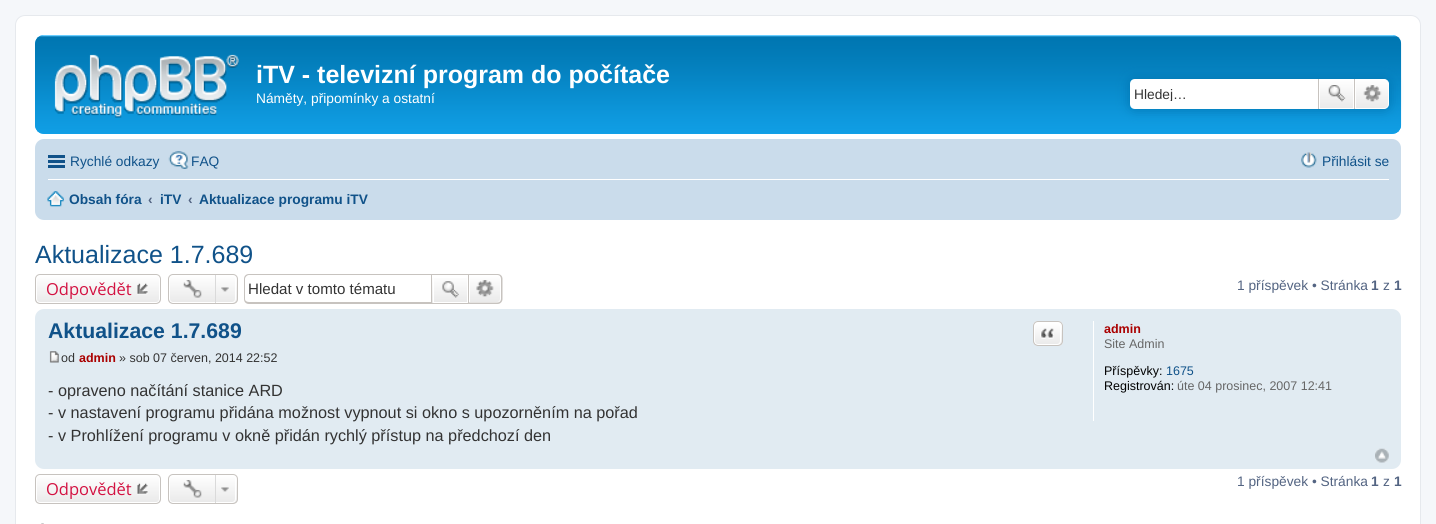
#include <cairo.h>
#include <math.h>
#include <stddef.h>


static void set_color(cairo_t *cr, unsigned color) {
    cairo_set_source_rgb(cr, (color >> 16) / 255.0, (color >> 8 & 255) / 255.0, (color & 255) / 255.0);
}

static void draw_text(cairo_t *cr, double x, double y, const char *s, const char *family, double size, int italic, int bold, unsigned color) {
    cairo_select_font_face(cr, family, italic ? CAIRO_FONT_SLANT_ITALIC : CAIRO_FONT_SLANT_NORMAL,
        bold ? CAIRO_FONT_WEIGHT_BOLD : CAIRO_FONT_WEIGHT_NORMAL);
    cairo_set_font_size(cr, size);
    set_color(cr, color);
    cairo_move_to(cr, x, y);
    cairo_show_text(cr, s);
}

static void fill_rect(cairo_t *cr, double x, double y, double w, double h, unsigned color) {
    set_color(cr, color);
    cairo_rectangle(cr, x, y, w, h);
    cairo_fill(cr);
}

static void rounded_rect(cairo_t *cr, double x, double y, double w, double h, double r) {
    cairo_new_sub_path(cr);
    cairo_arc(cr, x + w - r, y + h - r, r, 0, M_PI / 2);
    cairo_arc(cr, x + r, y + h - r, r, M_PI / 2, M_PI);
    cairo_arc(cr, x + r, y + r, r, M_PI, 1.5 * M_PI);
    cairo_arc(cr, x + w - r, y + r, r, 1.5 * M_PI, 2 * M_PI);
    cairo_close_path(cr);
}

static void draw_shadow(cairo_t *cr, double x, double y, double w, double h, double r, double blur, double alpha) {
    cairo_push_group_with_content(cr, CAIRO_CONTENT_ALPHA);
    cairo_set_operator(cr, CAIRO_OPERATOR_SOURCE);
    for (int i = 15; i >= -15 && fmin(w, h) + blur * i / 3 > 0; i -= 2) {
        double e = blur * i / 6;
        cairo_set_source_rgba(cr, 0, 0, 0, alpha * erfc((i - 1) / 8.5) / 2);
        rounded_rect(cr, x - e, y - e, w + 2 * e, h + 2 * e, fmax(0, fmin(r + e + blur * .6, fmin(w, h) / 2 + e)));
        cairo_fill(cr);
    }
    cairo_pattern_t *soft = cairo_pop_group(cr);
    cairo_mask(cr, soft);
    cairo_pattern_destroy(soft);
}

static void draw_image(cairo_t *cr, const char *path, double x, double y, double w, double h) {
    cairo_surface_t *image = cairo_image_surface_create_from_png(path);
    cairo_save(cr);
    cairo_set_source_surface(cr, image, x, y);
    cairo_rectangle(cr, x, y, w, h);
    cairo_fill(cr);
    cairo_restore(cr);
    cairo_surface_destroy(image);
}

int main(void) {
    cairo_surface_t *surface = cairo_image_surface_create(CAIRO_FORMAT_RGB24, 1436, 524);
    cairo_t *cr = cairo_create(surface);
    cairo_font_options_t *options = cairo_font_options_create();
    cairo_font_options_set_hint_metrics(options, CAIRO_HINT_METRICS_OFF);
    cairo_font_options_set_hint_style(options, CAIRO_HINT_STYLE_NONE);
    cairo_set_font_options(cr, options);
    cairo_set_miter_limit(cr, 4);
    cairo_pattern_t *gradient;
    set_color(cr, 0xF5F7FA);
    cairo_paint(cr);
    set_color(cr, 0xFFFFFF);
    rounded_rect(cr, 15.5, 15.5, 1405, 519, 9.5);
    cairo_fill_preserve(cr);
    set_color(cr, 0xE6E9ED);
    cairo_set_line_width(cr, 1);
    cairo_stroke(cr);
    set_color(cr, 0x12A3EB);
    rounded_rect(cr, 35, 35, 1366, 99, 9);
    cairo_fill(cr);
    draw_image(cr, "assets/img1.png", 35, 35, 1367, 99);
    draw_image(cr, "assets/img2.png", 54, 54, 185, 64);
    draw_text(cr, 256, 83, "iTV - televizní program do počítače", "Liberation Sans", 25, 0, 1, 0xFFFFFF);
    draw_text(cr, 256, 103, "Náměty, připomínky a ostatní", "Liberation Sans", 13.75, 0, 0, 0xFFFFFF);
    set_color(cr, 0x0075B0);
    draw_shadow(cr, 1130, 79, 259, 30, 5, 6, 1);
    set_color(cr, 0xFFFFFF);
    cairo_new_path(cr);
    cairo_move_to(cr, 1135, 79);
    cairo_line_to(cr, 1318, 79);
    cairo_line_to(cr, 1318, 109);
    cairo_line_to(cr, 1135, 109);
    cairo_curve_to(cr, 1132, 109, 1130, 107, 1130, 104);
    cairo_line_to(cr, 1130, 84);
    cairo_curve_to(cr, 1130, 81, 1132, 79, 1135, 79);
    cairo_close_path(cr);
    cairo_fill(cr);
    cairo_save(cr);
    cairo_rectangle(cr, 1134, 86, 165, 15);
    cairo_clip(cr);
    draw_text(cr, 1134, 99, "Hledej…", "Liberation Sans", 13.75, 0, 0, 0x333333);
    cairo_restore(cr);
    gradient = cairo_pattern_create_linear(1336, 79, 1336, 109);
    cairo_pattern_add_color_stop_rgba(gradient, 0, 1, 1, 1, 1);
    cairo_pattern_add_color_stop_rgba(gradient, 1, 0.914, 0.914, 0.914, 1);
    cairo_set_source(cr, gradient);
    cairo_pattern_destroy(gradient);
    cairo_rectangle(cr, 1320, 80, 33, 28);
    cairo_fill(cr);
    cairo_rectangle(cr, 1319.5, 79.5, 34, 29);
    set_color(cr, 0xFFFFFF);
    cairo_stroke(cr);
    fill_rect(cr, 1354, 79, 1, 30, 0xC7C3BF);
    fill_rect(cr, 1318, 79, 1, 30, 0xC7C3BF);
    draw_image(cr, "assets/img3.png", 1328, 85, 18, 17);
    gradient = cairo_pattern_create_linear(1372, 79, 1372, 109);
    cairo_pattern_add_color_stop_rgba(gradient, 0, 1, 1, 1, 1);
    cairo_pattern_add_color_stop_rgba(gradient, 1, 0.914, 0.914, 0.914, 1);
    cairo_set_source(cr, gradient);
    cairo_pattern_destroy(gradient);
    cairo_new_path(cr);
    cairo_move_to(cr, 1355.5, 79.5);
    cairo_line_to(cr, 1384, 79.5);
    cairo_curve_to(cr, 1386.5, 79.5, 1388.5, 81.5, 1388.5, 84);
    cairo_line_to(cr, 1388.5, 104);
    cairo_curve_to(cr, 1388.5, 106.5, 1386.5, 108.5, 1384, 108.5);
    cairo_line_to(cr, 1355.5, 108.5);
    cairo_close_path(cr);
    cairo_fill_preserve(cr);
    set_color(cr, 0xFFFFFF);
    cairo_stroke(cr);
    draw_image(cr, "assets/img4.png", 1363, 85, 19, 17);
    set_color(cr, 0xCADCEB);
    rounded_rect(cr, 35, 139, 1366, 81, 9);
    cairo_fill(cr);
    fill_rect(cr, 48, 155, 17, 3, 0x105289);
    fill_rect(cr, 48, 160, 17, 3, 0x105289);
    fill_rect(cr, 48, 165, 17, 3, 0x105289);
    draw_text(cr, 70, 166, "Rychlé odkazy", "Liberation Sans", 13.75, 0, 0, 0x105289);
    draw_image(cr, "assets/img5.png", 168, 151, 21, 18);
    draw_text(cr, 191, 166, "FAQ", "Liberation Sans", 13.75, 0, 0, 0x105289);
    draw_image(cr, "assets/img6.png", 1301, 152, 16, 16);
    draw_text(cr, 1322, 166, "Přihlásit se", "Liberation Sans", 13.75, 0, 0, 0x105289);
    fill_rect(cr, 48, 179, 1341, 1, 0xFFFFFF);
    draw_image(cr, "assets/img7.png", 47, 191, 17, 16);
    draw_text(cr, 69, 204, "Obsah fóra", "Liberation Sans", 13.75, 0, 1, 0x105289);
    draw_text(cr, 148, 204, "‹", "Liberation Sans", 13.75, 0, 1, 0x536482);
    draw_text(cr, 160, 204, "iTV", "Liberation Sans", 13.75, 0, 1, 0x105289);
    draw_text(cr, 188, 204, "‹", "Liberation Sans", 13.75, 0, 1, 0x536482);
    draw_text(cr, 199, 204, "Aktualizace programu iTV", "Liberation Sans", 13.75, 0, 1, 0x105289);
    draw_text(cr, 35, 263, "Aktualizace 1.7.689", "Liberation Sans", 25, 0, 0, 0x105289);
    cairo_save(cr);
    rounded_rect(cr, 35, 274, 126, 30, 5);
    cairo_clip(cr);
    gradient = cairo_pattern_create_linear(98, 275, 98, 303);
    cairo_pattern_add_color_stop_rgba(gradient, 0, 1, 1, 1, 1);
    cairo_pattern_add_color_stop_rgba(gradient, 1, 0.914, 0.914, 0.914, 1);
    cairo_set_source(cr, gradient);
    cairo_pattern_destroy(gradient);
    cairo_rectangle(cr, 35, 275, 126, 28);
    cairo_fill(cr);
    cairo_restore(cr);
    rounded_rect(cr, 36.5, 275.5, 123, 27, 3.5);
    set_color(cr, 0xFFFFFF);
    cairo_stroke(cr);
    rounded_rect(cr, 35.5, 274.5, 125, 29, 4.5);
    set_color(cr, 0xC7C3BF);
    cairo_stroke(cr);
    draw_text(cr, 46, 295, "Odpovědět", "Open Sans", 16.5, 0, 0, 0xD31141);
    draw_image(cr, "assets/img8.png", 137, 283, 11, 12);
    cairo_save(cr);
    rounded_rect(cr, 168, 274, 70, 30, 5);
    cairo_clip(cr);
    gradient = cairo_pattern_create_linear(203, 275, 203, 303);
    cairo_pattern_add_color_stop_rgba(gradient, 0, 1, 1, 1, 1);
    cairo_pattern_add_color_stop_rgba(gradient, 1, 0.914, 0.914, 0.914, 1);
    cairo_set_source(cr, gradient);
    cairo_pattern_destroy(gradient);
    cairo_rectangle(cr, 168, 275, 70, 28);
    cairo_fill(cr);
    cairo_restore(cr);
    rounded_rect(cr, 169.5, 275.5, 66, 27, 3.5);
    set_color(cr, 0xFFFFFF);
    cairo_stroke(cr);
    rounded_rect(cr, 168.5, 274.5, 69, 29, 4.5);
    set_color(cr, 0xC7C3BF);
    cairo_stroke(cr);
    draw_image(cr, "assets/img9.png", 183, 280, 19, 18);
    draw_image(cr, "assets/img10.png", 221, 287, 8, 5);
    fill_rect(cr, 215, 275, 1, 28, 0xDADADA);
    set_color(cr, 0xC7C3BF);
    cairo_set_fill_rule(cr, CAIRO_FILL_RULE_EVEN_ODD);
    cairo_new_path(cr);
    cairo_move_to(cr, 249, 274);
    cairo_line_to(cr, 431, 274);
    cairo_line_to(cr, 431, 304);
    cairo_line_to(cr, 249, 304);
    cairo_curve_to(cr, 246, 304, 244, 302, 244, 299);
    cairo_line_to(cr, 244, 279);
    cairo_curve_to(cr, 244, 276, 246, 274, 249, 274);
    cairo_close_path(cr);
    cairo_move_to(cr, 249, 275);
    cairo_line_to(cr, 431, 275);
    cairo_line_to(cr, 431, 302);
    cairo_line_to(cr, 249, 302);
    cairo_curve_to(cr, 247, 302, 245, 301, 245, 299);
    cairo_line_to(cr, 245, 279);
    cairo_curve_to(cr, 245, 277, 247, 275, 249, 275);
    cairo_close_path(cr);
    cairo_fill(cr);
    draw_text(cr, 248, 294, "Hledat v tomto tématu", "Liberation Sans", 15.1, 0, 0, 0x333333);
    gradient = cairo_pattern_create_linear(450, 275, 450, 303);
    cairo_pattern_add_color_stop_rgba(gradient, 0, 1, 1, 1, 1);
    cairo_pattern_add_color_stop_rgba(gradient, 1, 0.914, 0.914, 0.914, 1);
    cairo_set_source(cr, gradient);
    cairo_pattern_destroy(gradient);
    cairo_rectangle(cr, 432, 278, 35, 25);
    cairo_fill(cr);
    cairo_rectangle(cr, 433.5, 275.5, 34, 27);
    set_color(cr, 0xFFFFFF);
    cairo_stroke(cr);
    cairo_rectangle(cr, 431.5, 274.5, 37, 29);
    set_color(cr, 0xC7C3BF);
    cairo_stroke(cr);
    draw_image(cr, "assets/img11.png", 442, 281, 17, 17);
    gradient = cairo_pattern_create_linear(485, 275, 485, 303);
    cairo_pattern_add_color_stop_rgba(gradient, 0, 1, 1, 1, 1);
    cairo_pattern_add_color_stop_rgba(gradient, 1, 0.914, 0.914, 0.914, 1);
    cairo_set_source(cr, gradient);
    cairo_pattern_destroy(gradient);
    cairo_new_path(cr);
    cairo_move_to(cr, 469.5, 275.5);
    cairo_line_to(cr, 497, 275.5);
    cairo_curve_to(cr, 499, 275.5, 500.5, 277, 500.5, 279);
    cairo_line_to(cr, 500.5, 299);
    cairo_curve_to(cr, 500.5, 301, 499, 302.5, 497, 302.5);
    cairo_line_to(cr, 469.5, 302.5);
    cairo_close_path(cr);
    cairo_fill_preserve(cr);
    set_color(cr, 0xFFFFFF);
    cairo_stroke(cr);
    set_color(cr, 0xC7C3BF);
    cairo_new_path(cr);
    cairo_move_to(cr, 469, 274);
    cairo_line_to(cr, 497.5, 274);
    cairo_curve_to(cr, 500.5, 274, 502.5, 276, 502.5, 279);
    cairo_line_to(cr, 502.5, 299);
    cairo_curve_to(cr, 502.5, 301.5, 500.5, 304, 497.5, 304);
    cairo_line_to(cr, 469, 304);
    cairo_close_path(cr);
    cairo_move_to(cr, 469, 275);
    cairo_line_to(cr, 497.5, 275);
    cairo_curve_to(cr, 499.5, 275, 501, 276.5, 501, 279);
    cairo_line_to(cr, 501, 299);
    cairo_curve_to(cr, 501, 301, 499.5, 302.5, 497.5, 302.5);
    cairo_line_to(cr, 469, 302.5);
    cairo_close_path(cr);
    cairo_fill(cr);
    draw_image(cr, "assets/img12.png", 476, 280, 18, 17);
    draw_text(cr, 1237, 290, "1 příspěvek • Stránka", "Liberation Sans", 13.75, 0, 0, 0x536482);
    draw_text(cr, 1371, 290, "1", "Liberation Sans", 13.75, 0, 1, 0x536482);
    draw_text(cr, 1383, 290, "z", "Liberation Sans", 13.75, 0, 0, 0x536482);
    draw_text(cr, 1394, 290, "1", "Liberation Sans", 13.75, 0, 1, 0x536482);
    set_color(cr, 0xE1EBF2);
    rounded_rect(cr, 35, 309, 1366, 160, 9);
    cairo_fill(cr);
    draw_text(cr, 48, 338, "Aktualizace 1.7.689", "Liberation Sans", 21.25, 0, 1, 0x105289);
    set_color(cr, 0xFFFFFF);
    rounded_rect(cr, 1033, 321, 30, 25, 5);
    cairo_fill(cr);
    cairo_save(cr);
    cairo_set_fill_rule(cr, CAIRO_FILL_RULE_WINDING);
    rounded_rect(cr, 1033, 321, 30, 25, 5);
    cairo_clip(cr);
    gradient = cairo_pattern_create_linear(1048, 323, 1048, 345);
    cairo_pattern_add_color_stop_rgba(gradient, 0, 1, 1, 1, 1);
    cairo_pattern_add_color_stop_rgba(gradient, 1, 0.914, 0.914, 0.914, 1);
    cairo_set_source(cr, gradient);
    cairo_pattern_destroy(gradient);
    cairo_rectangle(cr, 1033, 323, 30, 22);
    cairo_fill(cr);
    cairo_restore(cr);
    rounded_rect(cr, 1034.5, 323.5, 26, 21, 3.5);
    cairo_stroke(cr);
    rounded_rect(cr, 1033.5, 321.5, 29, 24, 4.5);
    set_color(cr, 0xC7C3BF);
    cairo_stroke(cr);
    draw_image(cr, "assets/img13.png", 1040, 328, 14, 11);
    draw_image(cr, "assets/img14.png", 49, 351, 10, 12);
    draw_text(cr, 61, 362, "od", "Liberation Sans", 12.5, 0, 0, 0x333333);
    draw_text(cr, 79, 362, "admin", "Liberation Sans", 12.5, 0, 1, 0xAA0000);
    draw_text(cr, 119, 362, "» sob 07 červen, 2014 22:52", "Liberation Sans", 12.5, 0, 0, 0x333333);
    draw_text(cr, 48, 396, "- opraveno načítání stanice ARD", "Liberation Sans", 16.25, 0, 0, 0x333333);
    draw_text(cr, 48, 418, "- v nastavení programu přidána možnost vypnout si okno s upozorněním na pořad", "Liberation Sans", 16.25, 0, 0, 0x333333);
    draw_text(cr, 48, 441, "- v Prohlížení programu v okně přidán rychlý přístup na předchozí den", "Liberation Sans", 16.25, 0, 0, 0x333333);
    fill_rect(cr, 1093, 321, 1, 100, 0xFFFFFF);
    draw_text(cr, 1104, 333, "admin", "Liberation Sans", 12.5, 0, 1, 0xAA0000);
    draw_text(cr, 1104, 348, "Site Admin", "Liberation Sans", 12.5, 0, 0, 0x666666);
    draw_text(cr, 1104, 375, "Příspěvky:", "Liberation Sans", 12.5, 0, 0, 0x000000);
    draw_text(cr, 1166, 375, "1675", "Liberation Sans", 12.5, 0, 0, 0x105289);
    draw_text(cr, 1104, 390, "Registrován:", "Liberation Sans", 12.5, 0, 0, 0x000000);
    draw_text(cr, 1177, 390, "úte 04 prosinec, 2007 12:41", "Liberation Sans", 12.5, 0, 0, 0x666666);
    draw_image(cr, "assets/img15.png", 1375, 448, 14, 15);
    cairo_save(cr);
    cairo_set_fill_rule(cr, CAIRO_FILL_RULE_WINDING);
    rounded_rect(cr, 35, 474, 126, 30, 5);
    cairo_clip(cr);
    gradient = cairo_pattern_create_linear(98, 475, 98, 503);
    cairo_pattern_add_color_stop_rgba(gradient, 0, 1, 1, 1, 1);
    cairo_pattern_add_color_stop_rgba(gradient, 1, 0.914, 0.914, 0.914, 1);
    cairo_set_source(cr, gradient);
    cairo_pattern_destroy(gradient);
    cairo_rectangle(cr, 35, 475, 126, 28);
    cairo_fill(cr);
    cairo_restore(cr);
    rounded_rect(cr, 36.5, 475.5, 123, 27, 3.5);
    set_color(cr, 0xFFFFFF);
    cairo_stroke(cr);
    rounded_rect(cr, 35.5, 474.5, 125, 29, 4.5);
    set_color(cr, 0xC7C3BF);
    cairo_stroke(cr);
    draw_text(cr, 46, 495, "Odpovědět", "Open Sans", 16.5, 0, 0, 0xD31141);
    draw_image(cr, "assets/img8.png", 137, 483, 11, 12);
    cairo_save(cr);
    cairo_set_fill_rule(cr, CAIRO_FILL_RULE_WINDING);
    rounded_rect(cr, 168, 474, 70, 30, 5);
    cairo_clip(cr);
    gradient = cairo_pattern_create_linear(203, 475, 203, 503);
    cairo_pattern_add_color_stop_rgba(gradient, 0, 1, 1, 1, 1);
    cairo_pattern_add_color_stop_rgba(gradient, 1, 0.914, 0.914, 0.914, 1);
    cairo_set_source(cr, gradient);
    cairo_pattern_destroy(gradient);
    cairo_rectangle(cr, 168, 475, 70, 28);
    cairo_fill(cr);
    cairo_restore(cr);
    rounded_rect(cr, 169.5, 475.5, 66, 27, 3.5);
    set_color(cr, 0xFFFFFF);
    cairo_stroke(cr);
    rounded_rect(cr, 168.5, 474.5, 69, 29, 4.5);
    set_color(cr, 0xC7C3BF);
    cairo_stroke(cr);
    draw_image(cr, "assets/img16.png", 183, 480, 19, 18);
    draw_image(cr, "assets/img10.png", 221, 487, 8, 5);
    fill_rect(cr, 215, 475, 1, 28, 0xDADADA);
    draw_text(cr, 1237, 486, "1 příspěvek • Stránka", "Liberation Sans", 13.75, 0, 0, 0x536482);
    draw_text(cr, 1371, 486, "1", "Liberation Sans", 13.75, 0, 1, 0x536482);
    draw_text(cr, 1383, 486, "z", "Liberation Sans", 13.75, 0, 0, 0x536482);
    draw_text(cr, 1394, 486, "1", "Liberation Sans", 13.75, 0, 1, 0x536482);
    draw_image(cr, "assets/img17.png", 41, 523, 3, 1);
    cairo_surface_write_to_png(surface, "output.png");
    cairo_font_options_destroy(options);
    cairo_destroy(cr);
    cairo_surface_destroy(surface);
    return 0;
}
